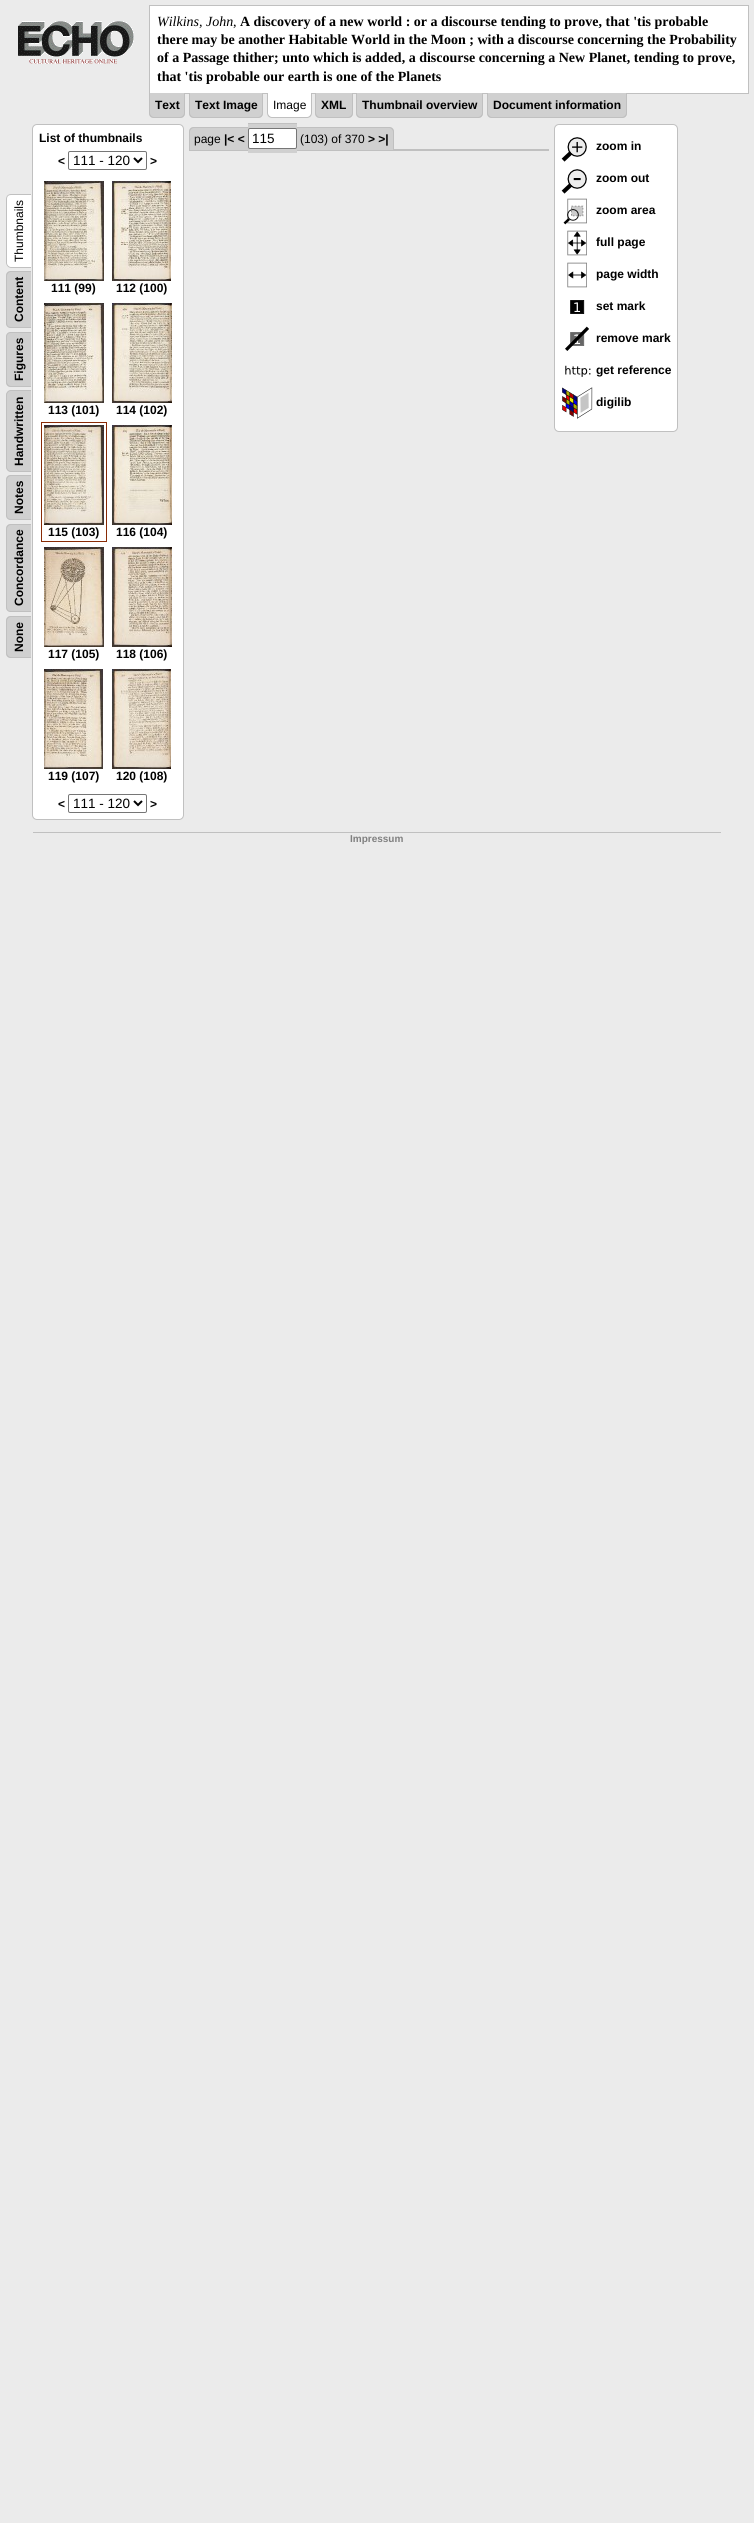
#include <cairo.h>
#include <math.h>
#include <stddef.h>


static void set_color(cairo_t *cr, unsigned color) {
    cairo_set_source_rgb(cr, (color >> 16) / 255.0, (color >> 8 & 255) / 255.0, (color & 255) / 255.0);
}

static void draw_text(cairo_t *cr, double x, double y, const char *s, const char *family, double size, int italic, int bold, unsigned color) {
    cairo_select_font_face(cr, family, italic ? CAIRO_FONT_SLANT_ITALIC : CAIRO_FONT_SLANT_NORMAL,
        bold ? CAIRO_FONT_WEIGHT_BOLD : CAIRO_FONT_WEIGHT_NORMAL);
    cairo_set_font_size(cr, size);
    set_color(cr, color);
    cairo_move_to(cr, x, y);
    cairo_show_text(cr, s);
}

static void fill_rect(cairo_t *cr, double x, double y, double w, double h, unsigned color) {
    set_color(cr, color);
    cairo_rectangle(cr, x, y, w, h);
    cairo_fill(cr);
}

static void rounded_rect(cairo_t *cr, double x, double y, double w, double h, double r) {
    cairo_new_sub_path(cr);
    cairo_arc(cr, x + w - r, y + h - r, r, 0, M_PI / 2);
    cairo_arc(cr, x + r, y + h - r, r, M_PI / 2, M_PI);
    cairo_arc(cr, x + r, y + r, r, M_PI, 1.5 * M_PI);
    cairo_arc(cr, x + w - r, y + r, r, 1.5 * M_PI, 2 * M_PI);
    cairo_close_path(cr);
}

static void draw_image(cairo_t *cr, const char *path, double x, double y, double w, double h) {
    cairo_surface_t *image = cairo_image_surface_create_from_png(path);
    cairo_save(cr);
    cairo_set_source_surface(cr, image, x, y);
    cairo_rectangle(cr, x, y, w, h);
    cairo_fill(cr);
    cairo_restore(cr);
    cairo_surface_destroy(image);
}

int main(void) {
    cairo_surface_t *surface = cairo_image_surface_create(CAIRO_FORMAT_RGB24, 754, 2523);
    cairo_t *cr = cairo_create(surface);
    cairo_font_options_t *options = cairo_font_options_create();
    cairo_font_options_set_hint_metrics(options, CAIRO_HINT_METRICS_OFF);
    cairo_font_options_set_hint_style(options, CAIRO_HINT_STYLE_NONE);
    cairo_set_font_options(cr, options);
    cairo_set_miter_limit(cr, 4);
    set_color(cr, 0xEBEBEB);
    cairo_paint(cr);
    draw_image(cr, "assets/img1.png", 18, 21, 116, 43);
    set_color(cr, 0xFFFFFF);
    cairo_rectangle(cr, 149.5, 5.5, 599, 88);
    cairo_fill_preserve(cr);
    set_color(cr, 0xC0C0C0);
    cairo_set_line_width(cr, 1);
    cairo_stroke(cr);
    draw_text(cr, 157, 26, "Wilkins, John", "Liberation Serif", 14, 1, 0, 0x000000);
    draw_text(cr, 233, 26, ",", "Liberation Serif", 14, 0, 0, 0x000000);
    draw_text(cr, 240, 26, "A discovery of a new world : or a discourse tending to prove, that 'tis probable", "Liberation Serif", 14, 0, 1, 0x000000);
    draw_text(cr, 157, 44, "there may be another Habitable World in the Moon ; with a discourse concerning the Probability", "Liberation Serif", 14, 0, 1, 0x000000);
    draw_text(cr, 157, 62, "of a Passage thither; unto which is added, a discourse concerning a New Planet, tending to prove,", "Liberation Serif", 14, 0, 1, 0x000000);
    draw_text(cr, 157, 81, "that 'tis probable our earth is one of the Planets", "Liberation Serif", 14, 0, 1, 0x000000);
    set_color(cr, 0xD0D0D0);
    cairo_new_path(cr);
    cairo_move_to(cr, 149, 93);
    cairo_line_to(cr, 185, 93);
    cairo_line_to(cr, 185, 113);
    cairo_curve_to(cr, 185, 116, 183, 118, 180, 118);
    cairo_line_to(cr, 154, 118);
    cairo_curve_to(cr, 151, 118, 149, 116, 149, 113);
    cairo_close_path(cr);
    cairo_fill(cr);
    set_color(cr, 0xC0C0C0);
    cairo_set_fill_rule(cr, CAIRO_FILL_RULE_EVEN_ODD);
    cairo_new_path(cr);
    cairo_move_to(cr, 149, 93);
    cairo_line_to(cr, 185, 93);
    cairo_line_to(cr, 185, 113);
    cairo_curve_to(cr, 185, 116, 183, 118, 180, 118);
    cairo_line_to(cr, 154, 118);
    cairo_curve_to(cr, 151, 118, 149, 116, 149, 113);
    cairo_close_path(cr);
    cairo_move_to(cr, 150, 93);
    cairo_line_to(cr, 184, 93);
    cairo_line_to(cr, 184, 113);
    cairo_curve_to(cr, 184, 115, 182, 117, 180, 117);
    cairo_line_to(cr, 154, 117);
    cairo_curve_to(cr, 152, 117, 150, 115, 150, 113);
    cairo_close_path(cr);
    cairo_fill(cr);
    draw_text(cr, 155, 109, "Text", "Liberation Sans", 12, 0, 1, 0x000000);
    set_color(cr, 0xD0D0D0);
    cairo_new_path(cr);
    cairo_move_to(cr, 189, 93);
    cairo_line_to(cr, 263, 93);
    cairo_line_to(cr, 263, 113);
    cairo_curve_to(cr, 263, 116, 261, 118, 258, 118);
    cairo_line_to(cr, 194, 118);
    cairo_curve_to(cr, 191, 118, 189, 116, 189, 113);
    cairo_close_path(cr);
    cairo_fill(cr);
    set_color(cr, 0xC0C0C0);
    cairo_new_path(cr);
    cairo_move_to(cr, 189, 93);
    cairo_line_to(cr, 263, 93);
    cairo_line_to(cr, 263, 113);
    cairo_curve_to(cr, 263, 116, 261, 118, 258, 118);
    cairo_line_to(cr, 194, 118);
    cairo_curve_to(cr, 191, 118, 189, 116, 189, 113);
    cairo_close_path(cr);
    cairo_move_to(cr, 190, 93);
    cairo_line_to(cr, 262, 93);
    cairo_line_to(cr, 262, 113);
    cairo_curve_to(cr, 262, 115, 260, 117, 258, 117);
    cairo_line_to(cr, 194, 117);
    cairo_curve_to(cr, 192, 117, 190, 115, 190, 113);
    cairo_close_path(cr);
    cairo_fill(cr);
    draw_text(cr, 195, 109, "Text Image", "Liberation Sans", 12, 0, 1, 0x000000);
    set_color(cr, 0xFFFFFF);
    cairo_new_path(cr);
    cairo_move_to(cr, 267, 93);
    cairo_line_to(cr, 312, 93);
    cairo_line_to(cr, 312, 113);
    cairo_curve_to(cr, 312, 116, 310, 118, 307, 118);
    cairo_line_to(cr, 272, 118);
    cairo_curve_to(cr, 269, 118, 267, 116, 267, 113);
    cairo_close_path(cr);
    cairo_fill(cr);
    set_color(cr, 0xC0C0C0);
    cairo_new_path(cr);
    cairo_move_to(cr, 267, 93);
    cairo_line_to(cr, 312, 93);
    cairo_line_to(cr, 312, 113);
    cairo_curve_to(cr, 312, 116, 310, 118, 307, 118);
    cairo_line_to(cr, 272, 118);
    cairo_curve_to(cr, 269, 118, 267, 116, 267, 113);
    cairo_close_path(cr);
    cairo_move_to(cr, 268, 93);
    cairo_line_to(cr, 311, 93);
    cairo_line_to(cr, 311, 113);
    cairo_curve_to(cr, 311, 115, 309, 117, 307, 117);
    cairo_line_to(cr, 272, 117);
    cairo_curve_to(cr, 270, 117, 268, 115, 268, 113);
    cairo_close_path(cr);
    cairo_fill(cr);
    draw_text(cr, 273, 109, "Image", "Liberation Sans", 12, 0, 0, 0x000000);
    set_color(cr, 0xD0D0D0);
    cairo_new_path(cr);
    cairo_move_to(cr, 315, 93);
    cairo_line_to(cr, 353, 93);
    cairo_line_to(cr, 353, 113);
    cairo_curve_to(cr, 353, 116, 351, 118, 348, 118);
    cairo_line_to(cr, 320, 118);
    cairo_curve_to(cr, 317, 118, 315, 116, 315, 113);
    cairo_close_path(cr);
    cairo_fill(cr);
    set_color(cr, 0xC0C0C0);
    cairo_new_path(cr);
    cairo_move_to(cr, 315, 93);
    cairo_line_to(cr, 353, 93);
    cairo_line_to(cr, 353, 113);
    cairo_curve_to(cr, 353, 116, 351, 118, 348, 118);
    cairo_line_to(cr, 320, 118);
    cairo_curve_to(cr, 317, 118, 315, 116, 315, 113);
    cairo_close_path(cr);
    cairo_move_to(cr, 316, 93);
    cairo_line_to(cr, 352, 93);
    cairo_line_to(cr, 352, 113);
    cairo_curve_to(cr, 352, 115, 350, 117, 348, 117);
    cairo_line_to(cr, 320, 117);
    cairo_curve_to(cr, 318, 117, 316, 115, 316, 113);
    cairo_close_path(cr);
    cairo_fill(cr);
    draw_text(cr, 321, 109, "XML", "Liberation Sans", 12, 0, 1, 0x000000);
    set_color(cr, 0xD0D0D0);
    cairo_new_path(cr);
    cairo_move_to(cr, 356, 93);
    cairo_line_to(cr, 483, 93);
    cairo_line_to(cr, 483, 113);
    cairo_curve_to(cr, 483, 116, 481, 118, 478, 118);
    cairo_line_to(cr, 361, 118);
    cairo_curve_to(cr, 358, 118, 356, 116, 356, 113);
    cairo_close_path(cr);
    cairo_fill(cr);
    set_color(cr, 0xC0C0C0);
    cairo_new_path(cr);
    cairo_move_to(cr, 356, 93);
    cairo_line_to(cr, 483, 93);
    cairo_line_to(cr, 483, 113);
    cairo_curve_to(cr, 483, 116, 481, 118, 478, 118);
    cairo_line_to(cr, 361, 118);
    cairo_curve_to(cr, 358, 118, 356, 116, 356, 113);
    cairo_close_path(cr);
    cairo_move_to(cr, 357, 93);
    cairo_line_to(cr, 482, 93);
    cairo_line_to(cr, 482, 113);
    cairo_curve_to(cr, 482, 115, 480, 117, 478, 117);
    cairo_line_to(cr, 361, 117);
    cairo_curve_to(cr, 359, 117, 357, 115, 357, 113);
    cairo_close_path(cr);
    cairo_fill(cr);
    draw_text(cr, 362, 109, "Thumbnail overview", "Liberation Sans", 12, 0, 1, 0x000000);
    set_color(cr, 0xD0D0D0);
    cairo_new_path(cr);
    cairo_move_to(cr, 487, 93);
    cairo_line_to(cr, 627, 93);
    cairo_line_to(cr, 627, 113);
    cairo_curve_to(cr, 627, 116, 625, 118, 622, 118);
    cairo_line_to(cr, 492, 118);
    cairo_curve_to(cr, 489, 118, 487, 116, 487, 113);
    cairo_close_path(cr);
    cairo_fill(cr);
    set_color(cr, 0xC0C0C0);
    cairo_new_path(cr);
    cairo_move_to(cr, 487, 93);
    cairo_line_to(cr, 627, 93);
    cairo_line_to(cr, 627, 113);
    cairo_curve_to(cr, 627, 116, 625, 118, 622, 118);
    cairo_line_to(cr, 492, 118);
    cairo_curve_to(cr, 489, 118, 487, 116, 487, 113);
    cairo_close_path(cr);
    cairo_move_to(cr, 488, 93);
    cairo_line_to(cr, 626, 93);
    cairo_line_to(cr, 626, 113);
    cairo_curve_to(cr, 626, 115, 624, 117, 622, 117);
    cairo_line_to(cr, 492, 117);
    cairo_curve_to(cr, 490, 117, 488, 115, 488, 113);
    cairo_close_path(cr);
    cairo_fill(cr);
    draw_text(cr, 493, 109, "Document information", "Liberation Sans", 12, 0, 1, 0x000000);
    set_color(cr, 0xFFFFFF);
    cairo_set_fill_rule(cr, CAIRO_FILL_RULE_WINDING);
    cairo_new_path(cr);
    cairo_move_to(cr, 6, 263);
    cairo_line_to(cr, 6, 199);
    cairo_curve_to(cr, 6, 196, 8, 194, 11, 194);
    cairo_line_to(cr, 31, 194);
    cairo_line_to(cr, 31, 268);
    cairo_line_to(cr, 11, 268);
    cairo_curve_to(cr, 8, 268, 6, 265, 6, 263);
    cairo_close_path(cr);
    cairo_fill(cr);
    set_color(cr, 0xC0C0C0);
    cairo_set_fill_rule(cr, CAIRO_FILL_RULE_EVEN_ODD);
    cairo_new_path(cr);
    cairo_move_to(cr, 6, 263);
    cairo_line_to(cr, 6, 199);
    cairo_curve_to(cr, 6, 196, 8, 194, 11, 194);
    cairo_line_to(cr, 31, 194);
    cairo_line_to(cr, 31, 268);
    cairo_line_to(cr, 11, 268);
    cairo_curve_to(cr, 8, 268, 6, 265, 6, 263);
    cairo_close_path(cr);
    cairo_move_to(cr, 7, 263);
    cairo_line_to(cr, 7, 199);
    cairo_curve_to(cr, 7, 196, 9, 195, 11, 195);
    cairo_line_to(cr, 31, 195);
    cairo_line_to(cr, 31, 267);
    cairo_line_to(cr, 11, 267);
    cairo_curve_to(cr, 9, 267, 7, 265, 7, 263);
    cairo_close_path(cr);
    cairo_fill(cr);
    cairo_save(cr);
    cairo_translate(cr, 23, 262);
    cairo_rotate(cr, -90 * M_PI / 180);
    draw_text(cr, 0, 0, "Thumbnails", "Liberation Sans", 12, 0, 0, 0x000000);
    cairo_restore(cr);
    set_color(cr, 0xD0D0D0);
    cairo_set_fill_rule(cr, CAIRO_FILL_RULE_WINDING);
    cairo_new_path(cr);
    cairo_move_to(cr, 6, 323);
    cairo_line_to(cr, 6, 276);
    cairo_curve_to(cr, 6, 273, 8, 271, 11, 271);
    cairo_line_to(cr, 31, 271);
    cairo_line_to(cr, 31, 328);
    cairo_line_to(cr, 11, 328);
    cairo_curve_to(cr, 8, 328, 6, 326, 6, 323);
    cairo_close_path(cr);
    cairo_fill(cr);
    set_color(cr, 0xC0C0C0);
    cairo_set_fill_rule(cr, CAIRO_FILL_RULE_EVEN_ODD);
    cairo_new_path(cr);
    cairo_move_to(cr, 6, 323);
    cairo_line_to(cr, 6, 276);
    cairo_curve_to(cr, 6, 273, 8, 271, 11, 271);
    cairo_line_to(cr, 31, 271);
    cairo_line_to(cr, 31, 328);
    cairo_line_to(cr, 11, 328);
    cairo_curve_to(cr, 8, 328, 6, 326, 6, 323);
    cairo_close_path(cr);
    cairo_move_to(cr, 7, 323);
    cairo_line_to(cr, 7, 276);
    cairo_curve_to(cr, 7, 274, 9, 272, 11, 272);
    cairo_line_to(cr, 31, 272);
    cairo_line_to(cr, 31, 327);
    cairo_line_to(cr, 11, 327);
    cairo_curve_to(cr, 9, 327, 7, 326, 7, 323);
    cairo_close_path(cr);
    cairo_fill(cr);
    cairo_save(cr);
    cairo_translate(cr, 23, 322);
    cairo_rotate(cr, -90 * M_PI / 180);
    draw_text(cr, 0, 0, "Content", "Liberation Sans", 12, 0, 1, 0x000000);
    cairo_restore(cr);
    set_color(cr, 0xD0D0D0);
    cairo_set_fill_rule(cr, CAIRO_FILL_RULE_WINDING);
    cairo_new_path(cr);
    cairo_move_to(cr, 6, 382);
    cairo_line_to(cr, 6, 337);
    cairo_curve_to(cr, 6, 334, 8, 332, 11, 332);
    cairo_line_to(cr, 31, 332);
    cairo_line_to(cr, 31, 387);
    cairo_line_to(cr, 11, 387);
    cairo_curve_to(cr, 8, 387, 6, 385, 6, 382);
    cairo_close_path(cr);
    cairo_fill(cr);
    set_color(cr, 0xC0C0C0);
    cairo_set_fill_rule(cr, CAIRO_FILL_RULE_EVEN_ODD);
    cairo_new_path(cr);
    cairo_move_to(cr, 6, 382);
    cairo_line_to(cr, 6, 337);
    cairo_curve_to(cr, 6, 334, 8, 332, 11, 332);
    cairo_line_to(cr, 31, 332);
    cairo_line_to(cr, 31, 387);
    cairo_line_to(cr, 11, 387);
    cairo_curve_to(cr, 8, 387, 6, 385, 6, 382);
    cairo_close_path(cr);
    cairo_move_to(cr, 7, 382);
    cairo_line_to(cr, 7, 337);
    cairo_curve_to(cr, 7, 334, 9, 333, 11, 333);
    cairo_line_to(cr, 31, 333);
    cairo_line_to(cr, 31, 386);
    cairo_line_to(cr, 11, 386);
    cairo_curve_to(cr, 9, 386, 7, 384, 7, 382);
    cairo_close_path(cr);
    cairo_fill(cr);
    cairo_save(cr);
    cairo_translate(cr, 23, 381);
    cairo_rotate(cr, -90 * M_PI / 180);
    draw_text(cr, 0, 0, "Figures", "Liberation Sans", 12, 0, 1, 0x000000);
    cairo_restore(cr);
    set_color(cr, 0xD0D0D0);
    cairo_set_fill_rule(cr, CAIRO_FILL_RULE_WINDING);
    cairo_new_path(cr);
    cairo_move_to(cr, 6, 467);
    cairo_line_to(cr, 6, 395);
    cairo_curve_to(cr, 6, 393, 8, 390, 11, 390);
    cairo_line_to(cr, 31, 390);
    cairo_line_to(cr, 31, 472);
    cairo_line_to(cr, 11, 472);
    cairo_curve_to(cr, 8, 472, 6, 469, 6, 467);
    cairo_close_path(cr);
    cairo_fill(cr);
    set_color(cr, 0xC0C0C0);
    cairo_set_fill_rule(cr, CAIRO_FILL_RULE_EVEN_ODD);
    cairo_new_path(cr);
    cairo_move_to(cr, 6, 467);
    cairo_line_to(cr, 6, 395);
    cairo_curve_to(cr, 6, 393, 8, 390, 11, 390);
    cairo_line_to(cr, 31, 390);
    cairo_line_to(cr, 31, 472);
    cairo_line_to(cr, 11, 472);
    cairo_curve_to(cr, 8, 472, 6, 469, 6, 467);
    cairo_close_path(cr);
    cairo_move_to(cr, 7, 467);
    cairo_line_to(cr, 7, 395);
    cairo_curve_to(cr, 7, 393, 9, 391, 11, 391);
    cairo_line_to(cr, 31, 391);
    cairo_line_to(cr, 31, 471);
    cairo_line_to(cr, 11, 471);
    cairo_curve_to(cr, 9, 471, 7, 469, 7, 467);
    cairo_close_path(cr);
    cairo_fill(cr);
    cairo_save(cr);
    cairo_translate(cr, 23, 466);
    cairo_rotate(cr, -90 * M_PI / 180);
    draw_text(cr, 0, 0, "Handwritten", "Liberation Sans", 12, 0, 1, 0x000000);
    cairo_restore(cr);
    set_color(cr, 0xD0D0D0);
    cairo_set_fill_rule(cr, CAIRO_FILL_RULE_WINDING);
    cairo_new_path(cr);
    cairo_move_to(cr, 6, 515);
    cairo_line_to(cr, 6, 480);
    cairo_curve_to(cr, 6, 477, 8, 475, 11, 475);
    cairo_line_to(cr, 31, 475);
    cairo_line_to(cr, 31, 520);
    cairo_line_to(cr, 11, 520);
    cairo_curve_to(cr, 8, 520, 6, 518, 6, 515);
    cairo_close_path(cr);
    cairo_fill(cr);
    set_color(cr, 0xC0C0C0);
    cairo_set_fill_rule(cr, CAIRO_FILL_RULE_EVEN_ODD);
    cairo_new_path(cr);
    cairo_move_to(cr, 6, 515);
    cairo_line_to(cr, 6, 480);
    cairo_curve_to(cr, 6, 477, 8, 475, 11, 475);
    cairo_line_to(cr, 31, 475);
    cairo_line_to(cr, 31, 520);
    cairo_line_to(cr, 11, 520);
    cairo_curve_to(cr, 8, 520, 6, 518, 6, 515);
    cairo_close_path(cr);
    cairo_move_to(cr, 7, 515);
    cairo_line_to(cr, 7, 480);
    cairo_curve_to(cr, 7, 478, 9, 476, 11, 476);
    cairo_line_to(cr, 31, 476);
    cairo_line_to(cr, 31, 519);
    cairo_line_to(cr, 11, 519);
    cairo_curve_to(cr, 9, 519, 7, 518, 7, 515);
    cairo_close_path(cr);
    cairo_fill(cr);
    cairo_save(cr);
    cairo_translate(cr, 23, 514);
    cairo_rotate(cr, -90 * M_PI / 180);
    draw_text(cr, 0, 0, "Notes", "Liberation Sans", 12, 0, 1, 0x000000);
    cairo_restore(cr);
    set_color(cr, 0xD0D0D0);
    cairo_set_fill_rule(cr, CAIRO_FILL_RULE_WINDING);
    cairo_new_path(cr);
    cairo_move_to(cr, 6, 607);
    cairo_line_to(cr, 6, 529);
    cairo_curve_to(cr, 6, 526, 8, 524, 11, 524);
    cairo_line_to(cr, 31, 524);
    cairo_line_to(cr, 31, 612);
    cairo_line_to(cr, 11, 612);
    cairo_curve_to(cr, 8, 612, 6, 610, 6, 607);
    cairo_close_path(cr);
    cairo_fill(cr);
    set_color(cr, 0xC0C0C0);
    cairo_set_fill_rule(cr, CAIRO_FILL_RULE_EVEN_ODD);
    cairo_new_path(cr);
    cairo_move_to(cr, 6, 607);
    cairo_line_to(cr, 6, 529);
    cairo_curve_to(cr, 6, 526, 8, 524, 11, 524);
    cairo_line_to(cr, 31, 524);
    cairo_line_to(cr, 31, 612);
    cairo_line_to(cr, 11, 612);
    cairo_curve_to(cr, 8, 612, 6, 610, 6, 607);
    cairo_close_path(cr);
    cairo_move_to(cr, 7, 607);
    cairo_line_to(cr, 7, 529);
    cairo_curve_to(cr, 7, 527, 9, 525, 11, 525);
    cairo_line_to(cr, 31, 525);
    cairo_line_to(cr, 31, 611);
    cairo_line_to(cr, 11, 611);
    cairo_curve_to(cr, 9, 611, 7, 610, 7, 607);
    cairo_close_path(cr);
    cairo_fill(cr);
    cairo_save(cr);
    cairo_translate(cr, 23, 606);
    cairo_rotate(cr, -90 * M_PI / 180);
    draw_text(cr, 0, 0, "Concordance", "Liberation Sans", 12, 0, 1, 0x000000);
    cairo_restore(cr);
    set_color(cr, 0xD0D0D0);
    cairo_set_fill_rule(cr, CAIRO_FILL_RULE_WINDING);
    cairo_new_path(cr);
    cairo_move_to(cr, 6, 653);
    cairo_line_to(cr, 6, 621);
    cairo_curve_to(cr, 6, 618, 8, 616, 11, 616);
    cairo_line_to(cr, 31, 616);
    cairo_line_to(cr, 31, 658);
    cairo_line_to(cr, 11, 658);
    cairo_curve_to(cr, 8, 658, 6, 656, 6, 653);
    cairo_close_path(cr);
    cairo_fill(cr);
    set_color(cr, 0xC0C0C0);
    cairo_set_fill_rule(cr, CAIRO_FILL_RULE_EVEN_ODD);
    cairo_new_path(cr);
    cairo_move_to(cr, 6, 653);
    cairo_line_to(cr, 6, 621);
    cairo_curve_to(cr, 6, 618, 8, 616, 11, 616);
    cairo_line_to(cr, 31, 616);
    cairo_line_to(cr, 31, 658);
    cairo_line_to(cr, 11, 658);
    cairo_curve_to(cr, 8, 658, 6, 656, 6, 653);
    cairo_close_path(cr);
    cairo_move_to(cr, 7, 653);
    cairo_line_to(cr, 7, 621);
    cairo_curve_to(cr, 7, 619, 9, 617, 11, 617);
    cairo_line_to(cr, 31, 617);
    cairo_line_to(cr, 31, 657);
    cairo_line_to(cr, 11, 657);
    cairo_curve_to(cr, 9, 657, 7, 655, 7, 653);
    cairo_close_path(cr);
    cairo_fill(cr);
    cairo_save(cr);
    cairo_translate(cr, 23, 652);
    cairo_rotate(cr, -90 * M_PI / 180);
    draw_text(cr, 0, 0, "None", "Liberation Sans", 12, 0, 1, 0x000000);
    cairo_restore(cr);
    set_color(cr, 0xFFFFFF);
    rounded_rect(cr, 32.5, 124.5, 151, 695, 4.5);
    cairo_fill_preserve(cr);
    set_color(cr, 0xC0C0C0);
    cairo_stroke(cr);
    draw_text(cr, 39, 142, "List of thumbnails", "Liberation Sans", 12, 0, 1, 0x000000);
    draw_text(cr, 58, 165, "<", "Liberation Sans", 12, 0, 1, 0x000000);
    rounded_rect(cr, 68.5, 151.5, 78, 18, 1.5);
    set_color(cr, 0x767676);
    cairo_stroke(cr);
    cairo_new_path(cr);
    cairo_move_to(cr, 134, 158);
    cairo_line_to(cr, 138, 162);
    cairo_line_to(cr, 142, 158);
    set_color(cr, 0x000000);
    cairo_set_line_width(cr, 2);
    cairo_stroke(cr);
    draw_text(cr, 73, 165, "111 - 120", "Liberation Sans", 13.5, 0, 0, 0x000000);
    draw_text(cr, 150, 165, ">", "Liberation Sans", 12, 0, 1, 0x000000);
    draw_image(cr, "assets/img2.png", 44, 181, 60, 100);
    draw_text(cr, 51, 292, "111 (99)", "Liberation Sans", 12, 0, 1, 0x000000);
    draw_image(cr, "assets/img3.png", 112, 181, 59, 100);
    draw_text(cr, 116, 292, "112 (100)", "Liberation Sans", 12, 0, 1, 0x000000);
    draw_image(cr, "assets/img4.png", 44, 303, 60, 100);
    draw_text(cr, 48, 414, "113 (101)", "Liberation Sans", 12, 0, 1, 0x000000);
    draw_image(cr, "assets/img5.png", 112, 303, 60, 100);
    draw_text(cr, 116, 414, "114 (102)", "Liberation Sans", 12, 0, 1, 0x000000);
    cairo_rectangle(cr, 41.5, 422.5, 65, 119);
    set_color(cr, 0x892B06);
    cairo_set_line_width(cr, 1);
    cairo_stroke(cr);
    draw_image(cr, "assets/img6.png", 44, 425, 60, 100);
    draw_text(cr, 48, 536, "115 (103)", "Liberation Sans", 12, 0, 1, 0x000000);
    draw_image(cr, "assets/img7.png", 112, 425, 60, 100);
    draw_text(cr, 116, 536, "116 (104)", "Liberation Sans", 12, 0, 1, 0x000000);
    draw_image(cr, "assets/img8.png", 44, 547, 60, 100);
    draw_text(cr, 48, 658, "117 (105)", "Liberation Sans", 12, 0, 1, 0x000000);
    draw_image(cr, "assets/img9.png", 112, 547, 60, 100);
    draw_text(cr, 116, 658, "118 (106)", "Liberation Sans", 12, 0, 1, 0x000000);
    draw_image(cr, "assets/img10.png", 44, 669, 59, 100);
    draw_text(cr, 48, 780, "119 (107)", "Liberation Sans", 12, 0, 1, 0x000000);
    draw_image(cr, "assets/img11.png", 112, 669, 59, 100);
    draw_text(cr, 116, 780, "120 (108)", "Liberation Sans", 12, 0, 1, 0x000000);
    draw_text(cr, 58, 808, "<", "Liberation Sans", 12, 0, 1, 0x000000);
    rounded_rect(cr, 68.5, 794.5, 78, 18, 1.5);
    set_color(cr, 0x767676);
    cairo_stroke(cr);
    cairo_new_path(cr);
    cairo_move_to(cr, 134, 801);
    cairo_line_to(cr, 138, 805);
    cairo_line_to(cr, 142, 801);
    set_color(cr, 0x000000);
    cairo_set_line_width(cr, 2);
    cairo_stroke(cr);
    draw_text(cr, 73, 808, "111 - 120", "Liberation Sans", 13.5, 0, 0, 0x000000);
    draw_text(cr, 150, 808, ">", "Liberation Sans", 12, 0, 1, 0x000000);
    fill_rect(cr, 189, 149, 360, 2, 0xC0C0C0);
    set_color(cr, 0xD0D0D0);
    cairo_new_path(cr);
    cairo_move_to(cr, 194, 127);
    cairo_line_to(cr, 224, 127);
    cairo_line_to(cr, 224, 150);
    cairo_line_to(cr, 189, 150);
    cairo_line_to(cr, 189, 132);
    cairo_curve_to(cr, 189, 129, 191, 127, 194, 127);
    cairo_close_path(cr);
    cairo_fill(cr);
    set_color(cr, 0xC0C0C0);
    cairo_new_path(cr);
    cairo_move_to(cr, 194, 127);
    cairo_line_to(cr, 224, 127);
    cairo_line_to(cr, 224, 150);
    cairo_line_to(cr, 189, 150);
    cairo_line_to(cr, 189, 132);
    cairo_curve_to(cr, 189, 129, 191, 127, 194, 127);
    cairo_close_path(cr);
    cairo_move_to(cr, 194, 128);
    cairo_line_to(cr, 224, 128);
    cairo_line_to(cr, 224, 150);
    cairo_line_to(cr, 190, 150);
    cairo_line_to(cr, 190, 132);
    cairo_curve_to(cr, 190, 130, 192, 128, 194, 128);
    cairo_close_path(cr);
    cairo_fill(cr);
    fill_rect(cr, 224, 128, 10, 22, 0xD0D0D0);
    fill_rect(cr, 224, 127, 10, 1, 0xC0C0C0);
    fill_rect(cr, 234, 127, 14, 23, 0xD0D0D0);
    fill_rect(cr, 234, 127, 14, 1, 0xC0C0C0);
    fill_rect(cr, 248, 124, 49, 29, 0xD0D0D0);
    fill_rect(cr, 248, 123, 49, 1, 0xC0C0C0);
    fill_rect(cr, 297, 127, 3, 23, 0xD0D0D0);
    fill_rect(cr, 297, 127, 71, 1, 0xC0C0C0);
    fill_rect(cr, 300, 128, 68, 22, 0xD0D0D0);
    fill_rect(cr, 368, 127, 10, 23, 0xD0D0D0);
    fill_rect(cr, 368, 127, 10, 1, 0xC0C0C0);
    set_color(cr, 0xD0D0D0);
    cairo_new_path(cr);
    cairo_move_to(cr, 378, 127);
    cairo_line_to(cr, 389, 127);
    cairo_curve_to(cr, 392, 127, 394, 129, 394, 132);
    cairo_line_to(cr, 394, 150);
    cairo_line_to(cr, 378, 150);
    cairo_close_path(cr);
    cairo_fill(cr);
    set_color(cr, 0xC0C0C0);
    cairo_new_path(cr);
    cairo_move_to(cr, 378, 127);
    cairo_line_to(cr, 389, 127);
    cairo_curve_to(cr, 392, 127, 394, 129, 394, 132);
    cairo_line_to(cr, 394, 150);
    cairo_line_to(cr, 378, 150);
    cairo_close_path(cr);
    cairo_move_to(cr, 378, 128);
    cairo_line_to(cr, 389, 128);
    cairo_curve_to(cr, 391, 128, 393, 130, 393, 132);
    cairo_line_to(cr, 393, 150);
    cairo_line_to(cr, 378, 150);
    cairo_close_path(cr);
    cairo_fill(cr);
    draw_text(cr, 194, 143, "page", "Liberation Sans", 12, 0, 0, 0x000000);
    draw_text(cr, 224, 143, "|< <", "Liberation Sans", 12, 0, 1, 0x000000);
    set_color(cr, 0xFFFFFF);
    rounded_rect(cr, 248.5, 128.5, 48, 20, 1.5);
    cairo_fill_preserve(cr);
    set_color(cr, 0x767676);
    cairo_set_line_width(cr, 1);
    cairo_stroke(cr);
    draw_text(cr, 252, 143, "115", "Liberation Sans", 13.5, 0, 0, 0x000000);
    draw_text(cr, 300, 143, "(103) of 370", "Liberation Sans", 12, 0, 0, 0x000000);
    draw_text(cr, 368, 143, "> >|", "Liberation Sans", 12, 0, 1, 0x000000);
    set_color(cr, 0xFFFFFF);
    rounded_rect(cr, 554.5, 124.5, 123, 307, 4.5);
    cairo_fill_preserve(cr);
    set_color(cr, 0xC0C0C0);
    cairo_stroke(cr);
    draw_image(cr, "assets/img12.png", 561, 137, 26, 25);
    draw_text(cr, 596, 150, "zoom in", "Liberation Sans", 12, 0, 1, 0x000000);
    draw_image(cr, "assets/img13.png", 561, 169, 26, 25);
    draw_text(cr, 596, 182, "zoom out", "Liberation Sans", 12, 0, 1, 0x000000);
    draw_image(cr, "assets/img14.png", 563, 198, 24, 27);
    draw_text(cr, 596, 214, "zoom area", "Liberation Sans", 12, 0, 1, 0x000000);
    draw_image(cr, "assets/img15.png", 567, 230, 20, 26);
    draw_text(cr, 596, 246, "full page", "Liberation Sans", 12, 0, 1, 0x000000);
    draw_image(cr, "assets/img16.png", 567, 262, 20, 26);
    draw_text(cr, 596, 278, "page width", "Liberation Sans", 12, 0, 1, 0x000000);
    draw_image(cr, "assets/img17.png", 570, 300, 15, 14);
    draw_text(cr, 596, 310, "set mark", "Liberation Sans", 12, 0, 1, 0x000000);
    draw_image(cr, "assets/img18.png", 565, 326, 24, 25);
    draw_text(cr, 596, 342, "remove mark", "Liberation Sans", 12, 0, 1, 0x000000);
    draw_image(cr, "assets/img19.png", 565, 365, 26, 12);
    draw_text(cr, 596, 374, "get reference", "Liberation Sans", 12, 0, 1, 0x000000);
    draw_image(cr, "assets/img20.png", 562, 387, 31, 32);
    draw_text(cr, 596, 406, "digilib", "Liberation Sans", 12, 0, 1, 0x000000);
    fill_rect(cr, 33, 832, 688, 1, 0xC0C0C0);
    draw_text(cr, 350, 842, "Impressum", "Liberation Sans", 10, 0, 1, 0x808080);
    cairo_surface_write_to_png(surface, "output.png");
    cairo_font_options_destroy(options);
    cairo_destroy(cr);
    cairo_surface_destroy(surface);
    return 0;
}
